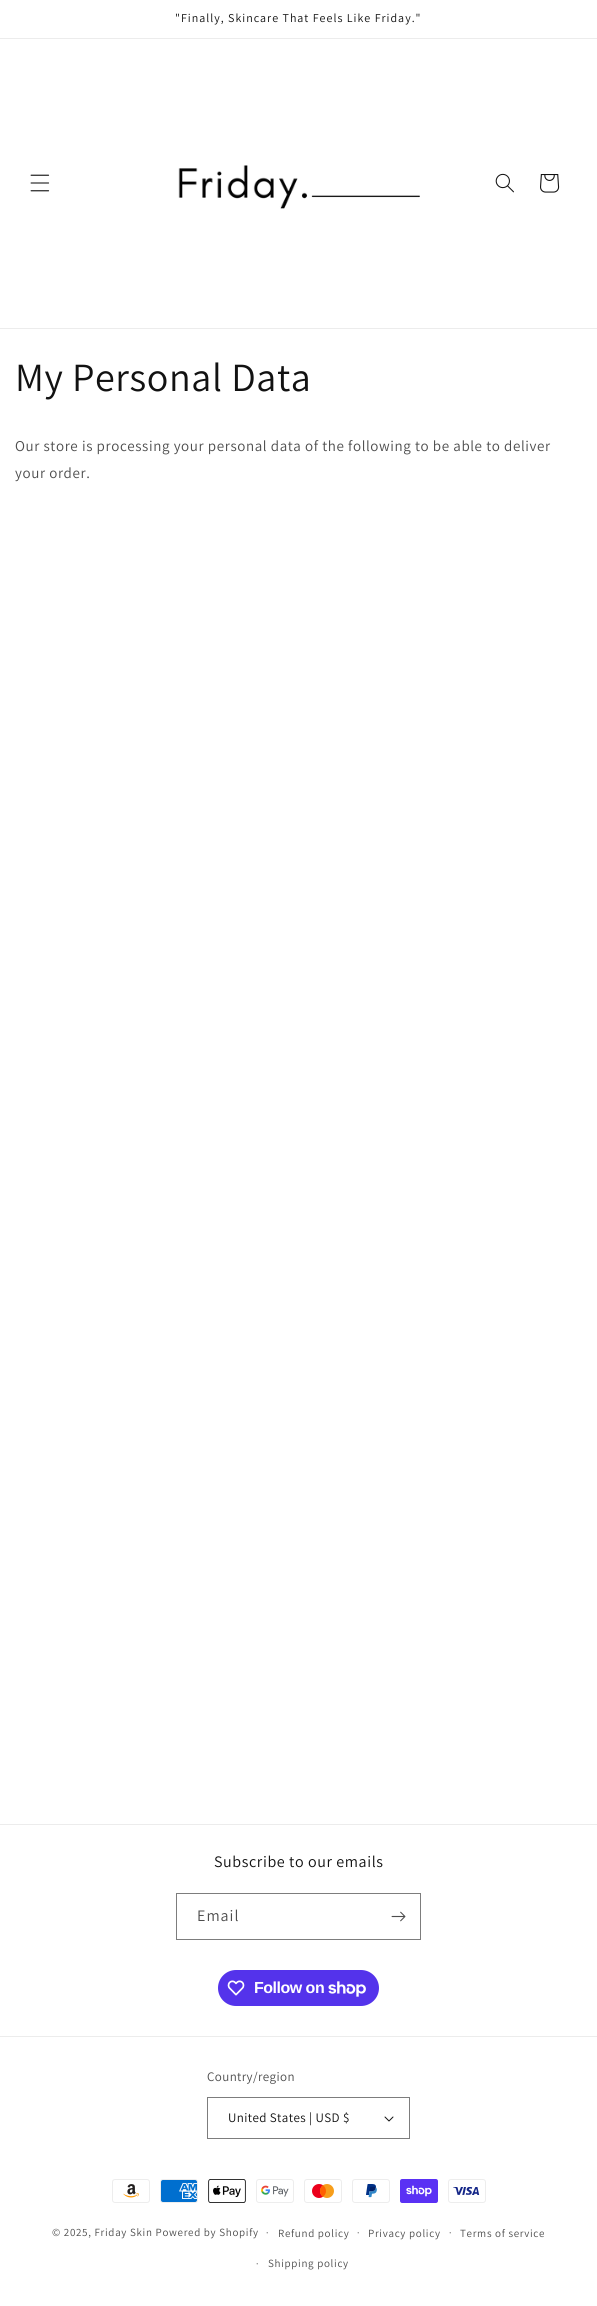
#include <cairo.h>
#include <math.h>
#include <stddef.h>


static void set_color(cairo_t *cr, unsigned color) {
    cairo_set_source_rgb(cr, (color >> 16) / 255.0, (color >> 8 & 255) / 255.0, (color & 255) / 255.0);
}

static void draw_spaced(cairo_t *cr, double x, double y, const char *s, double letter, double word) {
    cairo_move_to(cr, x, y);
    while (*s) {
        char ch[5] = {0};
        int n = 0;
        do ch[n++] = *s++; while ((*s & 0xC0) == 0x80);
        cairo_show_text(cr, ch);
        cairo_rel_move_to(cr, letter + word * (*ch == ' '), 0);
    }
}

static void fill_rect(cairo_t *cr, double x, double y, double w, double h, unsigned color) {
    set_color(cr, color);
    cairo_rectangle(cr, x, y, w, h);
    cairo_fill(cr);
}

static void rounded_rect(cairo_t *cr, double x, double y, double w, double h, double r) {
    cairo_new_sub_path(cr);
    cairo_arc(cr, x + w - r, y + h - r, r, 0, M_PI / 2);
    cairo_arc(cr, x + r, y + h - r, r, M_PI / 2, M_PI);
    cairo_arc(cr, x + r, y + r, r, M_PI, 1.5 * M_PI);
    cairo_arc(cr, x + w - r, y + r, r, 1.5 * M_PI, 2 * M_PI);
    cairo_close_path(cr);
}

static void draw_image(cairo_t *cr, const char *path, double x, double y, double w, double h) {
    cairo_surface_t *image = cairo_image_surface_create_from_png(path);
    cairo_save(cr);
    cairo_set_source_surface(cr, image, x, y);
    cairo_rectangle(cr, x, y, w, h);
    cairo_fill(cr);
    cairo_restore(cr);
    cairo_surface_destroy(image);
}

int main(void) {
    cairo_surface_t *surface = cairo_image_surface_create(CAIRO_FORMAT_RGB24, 597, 2306);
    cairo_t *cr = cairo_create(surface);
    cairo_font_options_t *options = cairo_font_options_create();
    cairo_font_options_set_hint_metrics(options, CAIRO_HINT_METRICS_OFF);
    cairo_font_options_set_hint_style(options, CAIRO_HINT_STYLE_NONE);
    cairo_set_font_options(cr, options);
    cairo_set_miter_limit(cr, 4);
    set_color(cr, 0xFFFFFF);
    cairo_paint(cr);
    fill_rect(cr, 0, 38, 597, 1, 0xECECEC);
    cairo_select_font_face(cr, "Assistant", CAIRO_FONT_SLANT_NORMAL, CAIRO_FONT_WEIGHT_NORMAL);
    cairo_set_font_size(cr, 12);
    set_color(cr, 0x121212);
    draw_spaced(cr, 175, 22, "\"Finally, Skincare That Feels Like Friday.\"", 1, 0);
    fill_rect(cr, 0, 328, 597, 1, 0xECECEC);
    draw_image(cr, "assets/img1.png", 30, 174, 20, 18);
    draw_image(cr, "assets/img2.png", 178, 165, 242, 44);
    draw_image(cr, "assets/img3.png", 495, 173, 19, 20);
    draw_image(cr, "assets/img4.png", 540, 174, 20, 19);
    cairo_set_font_size(cr, 40);
    set_color(cr, 0x121212);
    draw_spaced(cr, 15, 391, "My Personal Data", 0.6, 0);
    cairo_set_font_size(cr, 15);
    set_color(cr, 0x4D4D4D);
    draw_spaced(cr, 15, 451, "Our store is processing your personal data of the following to be able to deliver", 0.6, 0);
    draw_spaced(cr, 15, 478, "your order.", 0.6, 0);
    fill_rect(cr, 0, 1824, 597, 1, 0xECECEC);
    cairo_set_font_size(cr, 16);
    set_color(cr, 0x121212);
    draw_spaced(cr, 214, 1867, "Subscribe to our emails", 0.6, 0);
    cairo_rectangle(cr, 176.5, 1893.5, 244, 46);
    set_color(cr, 0x7D7D7D);
    cairo_set_line_width(cr, 1);
    cairo_stroke(cr);
    set_color(cr, 0x4D4D4D);
    draw_spaced(cr, 197, 1921, "Email", 1, 0);
    draw_image(cr, "assets/img5.png", 391, 1911, 15, 11);
    set_color(cr, 0x5433EB);
    rounded_rect(cr, 218, 1970, 161, 36, 18);
    cairo_fill(cr);
    draw_image(cr, "assets/img6.png", 227, 1980, 18, 16);
    cairo_select_font_face(cr, "Liberation Sans", CAIRO_FONT_SLANT_NORMAL, CAIRO_FONT_WEIGHT_BOLD);
    set_color(cr, 0xFFFFFF);
    draw_spaced(cr, 254, 1993, "Follow on", -0.5, 0);
    draw_image(cr, "assets/img7.png", 328, 1981, 38, 16);
    fill_rect(cr, 0, 2036, 597, 1, 0xECECEC);
    cairo_select_font_face(cr, "Assistant", CAIRO_FONT_SLANT_NORMAL, CAIRO_FONT_WEIGHT_NORMAL);
    cairo_set_font_size(cr, 13);
    set_color(cr, 0x4D4D4D);
    draw_spaced(cr, 207, 2081, "Country/region", 0.4, 0);
    draw_image(cr, "assets/img8.png", 384, 2116, 10, 6);
    cairo_rectangle(cr, 207.5, 2097.5, 202, 41);
    set_color(cr, 0x7D7D7D);
    cairo_stroke(cr);
    set_color(cr, 0x121212);
    draw_spaced(cr, 228, 2122, "United States | USD $", 0.4, 0);
    draw_image(cr, "assets/img9.png", 112, 2179, 38, 24);
    draw_image(cr, "assets/img10.png", 160, 2179, 38, 24);
    draw_image(cr, "assets/img11.png", 208, 2179, 38, 24);
    draw_image(cr, "assets/img12.png", 256, 2179, 38, 24);
    draw_image(cr, "assets/img13.png", 304, 2179, 38, 24);
    draw_image(cr, "assets/img14.png", 352, 2179, 38, 24);
    draw_image(cr, "assets/img15.png", 400, 2179, 38, 24);
    draw_image(cr, "assets/img16.png", 448, 2179, 38, 24);
    cairo_set_font_size(cr, 11);
    set_color(cr, 0x4D4D4D);
    draw_spaced(cr, 52, 2236, "© 2025, Friday Skin Powered by Shopify", 0.7, 0);
    cairo_set_font_size(cr, 10);
    draw_spaced(cr, 266, 2236, "·", 0.7, 0);
    cairo_set_font_size(cr, 11);
    draw_spaced(cr, 278, 2237, "Refund policy", 0.7, 0);
    cairo_set_font_size(cr, 10);
    draw_spaced(cr, 357, 2236, "·", 0.7, 0);
    cairo_set_font_size(cr, 11);
    draw_spaced(cr, 368, 2237, "Privacy policy", 0.7, 0);
    cairo_set_font_size(cr, 10);
    draw_spaced(cr, 449, 2236, "·", 0.7, 0);
    cairo_set_font_size(cr, 11);
    draw_spaced(cr, 460, 2237, "Terms of service", 0.7, 0);
    cairo_set_font_size(cr, 10);
    draw_spaced(cr, 256, 2267, "·", 0.7, 0);
    cairo_set_font_size(cr, 11);
    draw_spaced(cr, 268, 2267, "Shipping policy", 0.7, 0);
    cairo_surface_write_to_png(surface, "output.png");
    cairo_font_options_destroy(options);
    cairo_destroy(cr);
    cairo_surface_destroy(surface);
    return 0;
}
